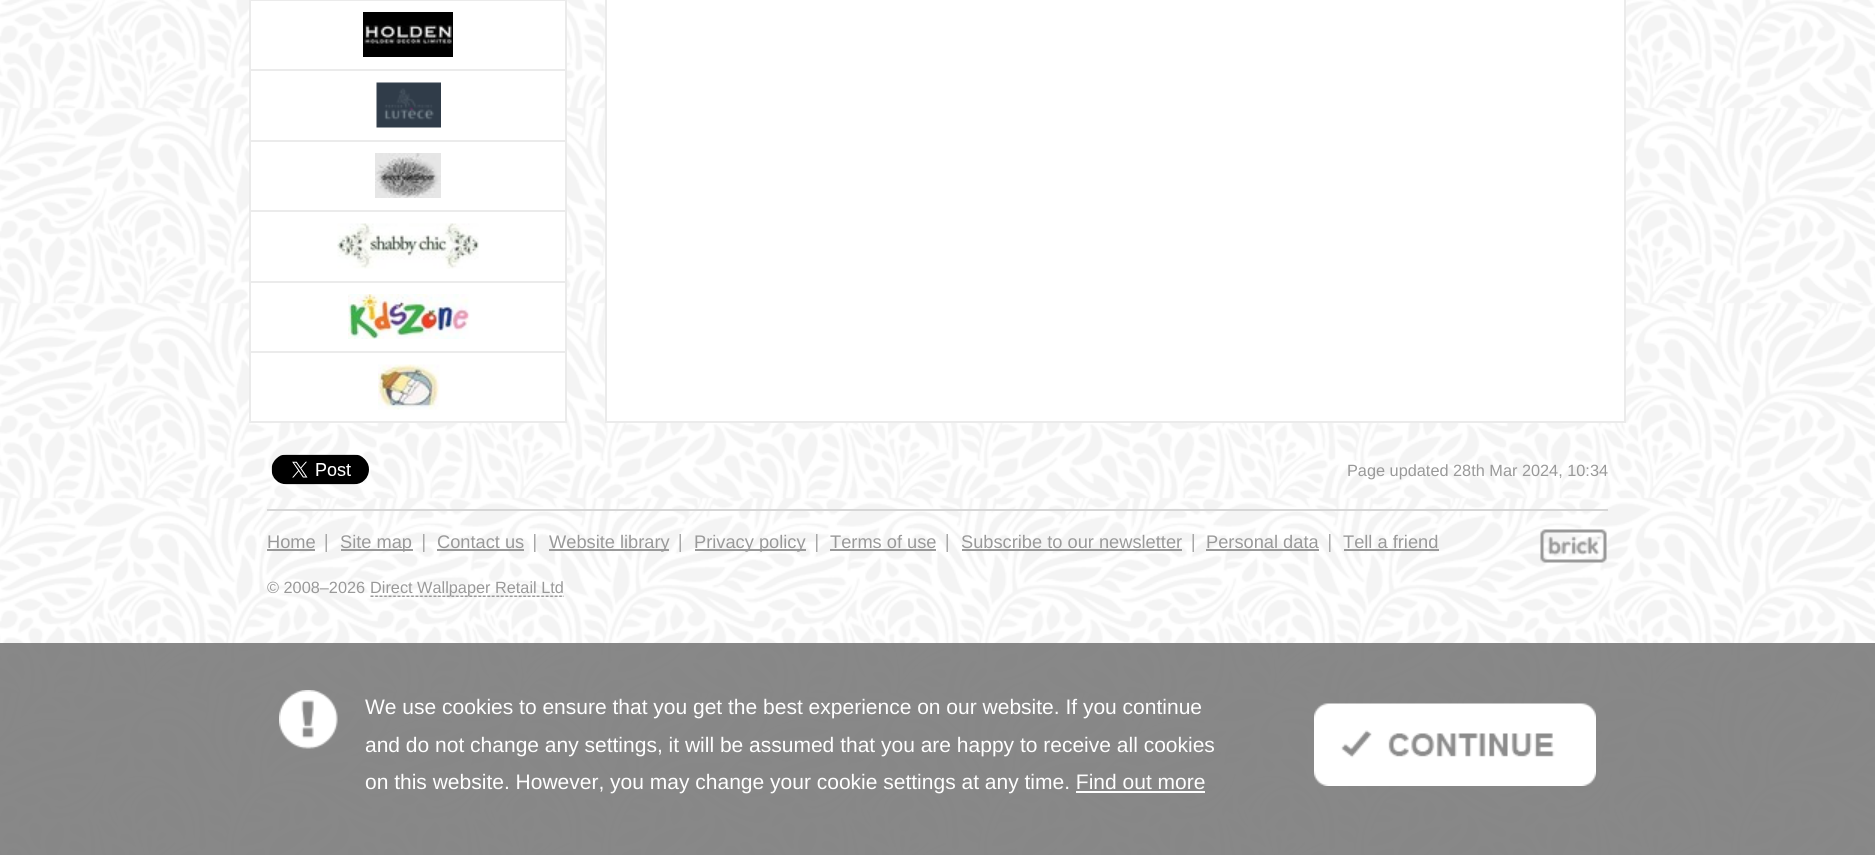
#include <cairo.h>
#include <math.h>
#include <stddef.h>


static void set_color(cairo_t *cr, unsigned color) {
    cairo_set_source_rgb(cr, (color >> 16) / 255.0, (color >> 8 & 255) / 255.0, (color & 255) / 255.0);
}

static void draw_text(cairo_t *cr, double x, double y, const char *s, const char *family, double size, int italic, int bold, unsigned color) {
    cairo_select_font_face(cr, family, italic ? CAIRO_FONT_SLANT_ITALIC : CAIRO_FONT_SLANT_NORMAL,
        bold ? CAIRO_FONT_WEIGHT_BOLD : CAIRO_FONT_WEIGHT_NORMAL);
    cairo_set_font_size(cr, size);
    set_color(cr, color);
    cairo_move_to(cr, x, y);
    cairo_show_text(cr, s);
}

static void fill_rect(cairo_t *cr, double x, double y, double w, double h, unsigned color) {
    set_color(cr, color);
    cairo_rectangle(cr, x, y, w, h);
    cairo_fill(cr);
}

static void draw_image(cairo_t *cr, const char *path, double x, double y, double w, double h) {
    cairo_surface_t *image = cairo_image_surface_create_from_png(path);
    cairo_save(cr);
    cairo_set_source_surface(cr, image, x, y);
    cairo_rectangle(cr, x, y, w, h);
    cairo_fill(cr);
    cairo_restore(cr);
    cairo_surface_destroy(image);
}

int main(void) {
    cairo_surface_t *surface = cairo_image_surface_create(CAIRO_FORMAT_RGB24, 1875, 855);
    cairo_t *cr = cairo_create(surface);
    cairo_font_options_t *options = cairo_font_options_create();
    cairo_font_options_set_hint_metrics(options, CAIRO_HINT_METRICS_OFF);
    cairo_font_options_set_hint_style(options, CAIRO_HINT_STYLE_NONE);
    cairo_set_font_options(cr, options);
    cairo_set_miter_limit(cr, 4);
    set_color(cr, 0xFFFFFF);
    cairo_paint(cr);
    draw_image(cr, "assets/img1.png", 0, 0, 1875, 855);
    fill_rect(cr, 251, 1, 314, 420, 0xFFFFFF);
    cairo_rectangle(cr, 250, -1, 316, 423);
    set_color(cr, 0xEBEBEB);
    cairo_stroke(cr);
    fill_rect(cr, 251, 0, 315, 1, 0xEBEBEB);
    draw_image(cr, "assets/img2.png", 363, 12, 90, 45);
    fill_rect(cr, 251, 69, 315, 2, 0xEBEBEB);
    draw_image(cr, "assets/img3.png", 376, 82, 65, 46);
    fill_rect(cr, 251, 140, 315, 2, 0xEBEBEB);
    draw_image(cr, "assets/img4.png", 375, 153, 66, 45);
    fill_rect(cr, 251, 210, 315, 2, 0xEBEBEB);
    draw_image(cr, "assets/img5.png", 337, 223, 142, 46);
    fill_rect(cr, 251, 281, 315, 2, 0xEBEBEB);
    draw_image(cr, "assets/img6.png", 348, 294, 122, 45);
    fill_rect(cr, 251, 351, 315, 2, 0xEBEBEB);
    draw_image(cr, "assets/img7.png", 378, 364, 62, 46);
    set_color(cr, 0xFFFFFF);
    cairo_rectangle(cr, 606, -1, 1019, 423);
    cairo_fill_preserve(cr);
    set_color(cr, 0xEBEBEB);
    cairo_stroke(cr);
    draw_image(cr, "assets/img8.png", 271, 454, 98, 31);
    draw_text(cr, 1347, 476, "Page updated 28th Mar 2024, 10:34", "Liberation Sans", 16.3, 0, 0, 0x999999);
    fill_rect(cr, 267, 509, 1341, 2, 0xD6D6D6);
    draw_text(cr, 267, 548, "Home", "Liberation Sans", 18.25, 0, 0, 0x999999);
    fill_rect(cr, 267, 549, 48, 2, 0x999999);
    draw_image(cr, "assets/img9.png", 325, 534, 2, 18);
    fill_rect(cr, 341, 549, 72, 2, 0x999999);
    draw_text(cr, 340, 548, "Site map", "Liberation Sans", 18.25, 0, 0, 0x999999);
    draw_image(cr, "assets/img10.png", 423, 534, 2, 18);
    draw_text(cr, 437, 548, "Contact us", "Liberation Sans", 18.25, 0, 0, 0x999999);
    fill_rect(cr, 437, 549, 87, 2, 0x999999);
    draw_image(cr, "assets/img11.png", 534, 534, 2, 18);
    fill_rect(cr, 549, 549, 120, 2, 0x999999);
    draw_text(cr, 549, 548, "Website library", "Liberation Sans", 18.25, 0, 0, 0x999999);
    draw_image(cr, "assets/img12.png", 679, 534, 2, 18);
    fill_rect(cr, 695, 549, 111, 2, 0x999999);
    draw_text(cr, 694, 548, "Privacy policy", "Liberation Sans", 18.25, 0, 0, 0x999999);
    draw_image(cr, "assets/img13.png", 816, 534, 2, 18);
    draw_text(cr, 830, 548, "Terms of use", "Liberation Sans", 18.25, 0, 0, 0x999999);
    fill_rect(cr, 830, 549, 106, 2, 0x999999);
    draw_image(cr, "assets/img14.png", 946, 534, 2, 18);
    draw_text(cr, 961, 548, "Subscribe to our newsletter", "Liberation Sans", 18.25, 0, 0, 0x999999);
    fill_rect(cr, 962, 549, 220, 2, 0x999999);
    draw_image(cr, "assets/img15.png", 1192, 534, 2, 18);
    draw_text(cr, 1206, 548, "Personal data", "Liberation Sans", 18.25, 0, 0, 0x999999);
    fill_rect(cr, 1206, 549, 113, 2, 0x999999);
    draw_image(cr, "assets/img16.png", 1329, 534, 2, 18);
    draw_text(cr, 1343, 548, "Tell a friend", "Liberation Sans", 18.25, 0, 0, 0x999999);
    fill_rect(cr, 1344, 549, 95, 2, 0x999999);
    draw_text(cr, 267, 593, "© 2008–2026", "Liberation Sans", 16.3, 0, 0, 0x999999);
    draw_image(cr, "assets/img17.png", 370, 595, 194, 2);
    draw_text(cr, 370, 593, "Direct Wallpaper Retail Ltd", "Liberation Sans", 16.3, 0, 0, 0x999999);
    draw_image(cr, "assets/img18.png", 1540, 529, 67, 34);
    cairo_set_source_rgba(cr, 0.494, 0.494, 0.494, 0.92);
    cairo_rectangle(cr, 0, 643, 1875, 212);
    cairo_fill(cr);
    draw_image(cr, "assets/img19.png", 279, 690, 59, 59);
    draw_text(cr, 365, 714, "We use cookies to ensure that you get the best experience on our website. If you continue", "Liberation Sans", 21, 0, 0, 0xFFFFFF);
    draw_text(cr, 365, 752, "and do not change any settings, it will be assumed that you are happy to receive all cookies", "Liberation Sans", 21, 0, 0, 0xFFFFFF);
    draw_text(cr, 365, 789, "on this website. However, you may change your cookie settings at any time. Find out more", "Liberation Sans", 21, 0, 0, 0xFFFFFF);
    fill_rect(cr, 1076, 791, 129, 2, 0xFFFFFF);
    draw_image(cr, "assets/img20.png", 1314, 703, 282, 83);
    cairo_surface_write_to_png(surface, "output.png");
    cairo_font_options_destroy(options);
    cairo_destroy(cr);
    cairo_surface_destroy(surface);
    return 0;
}
